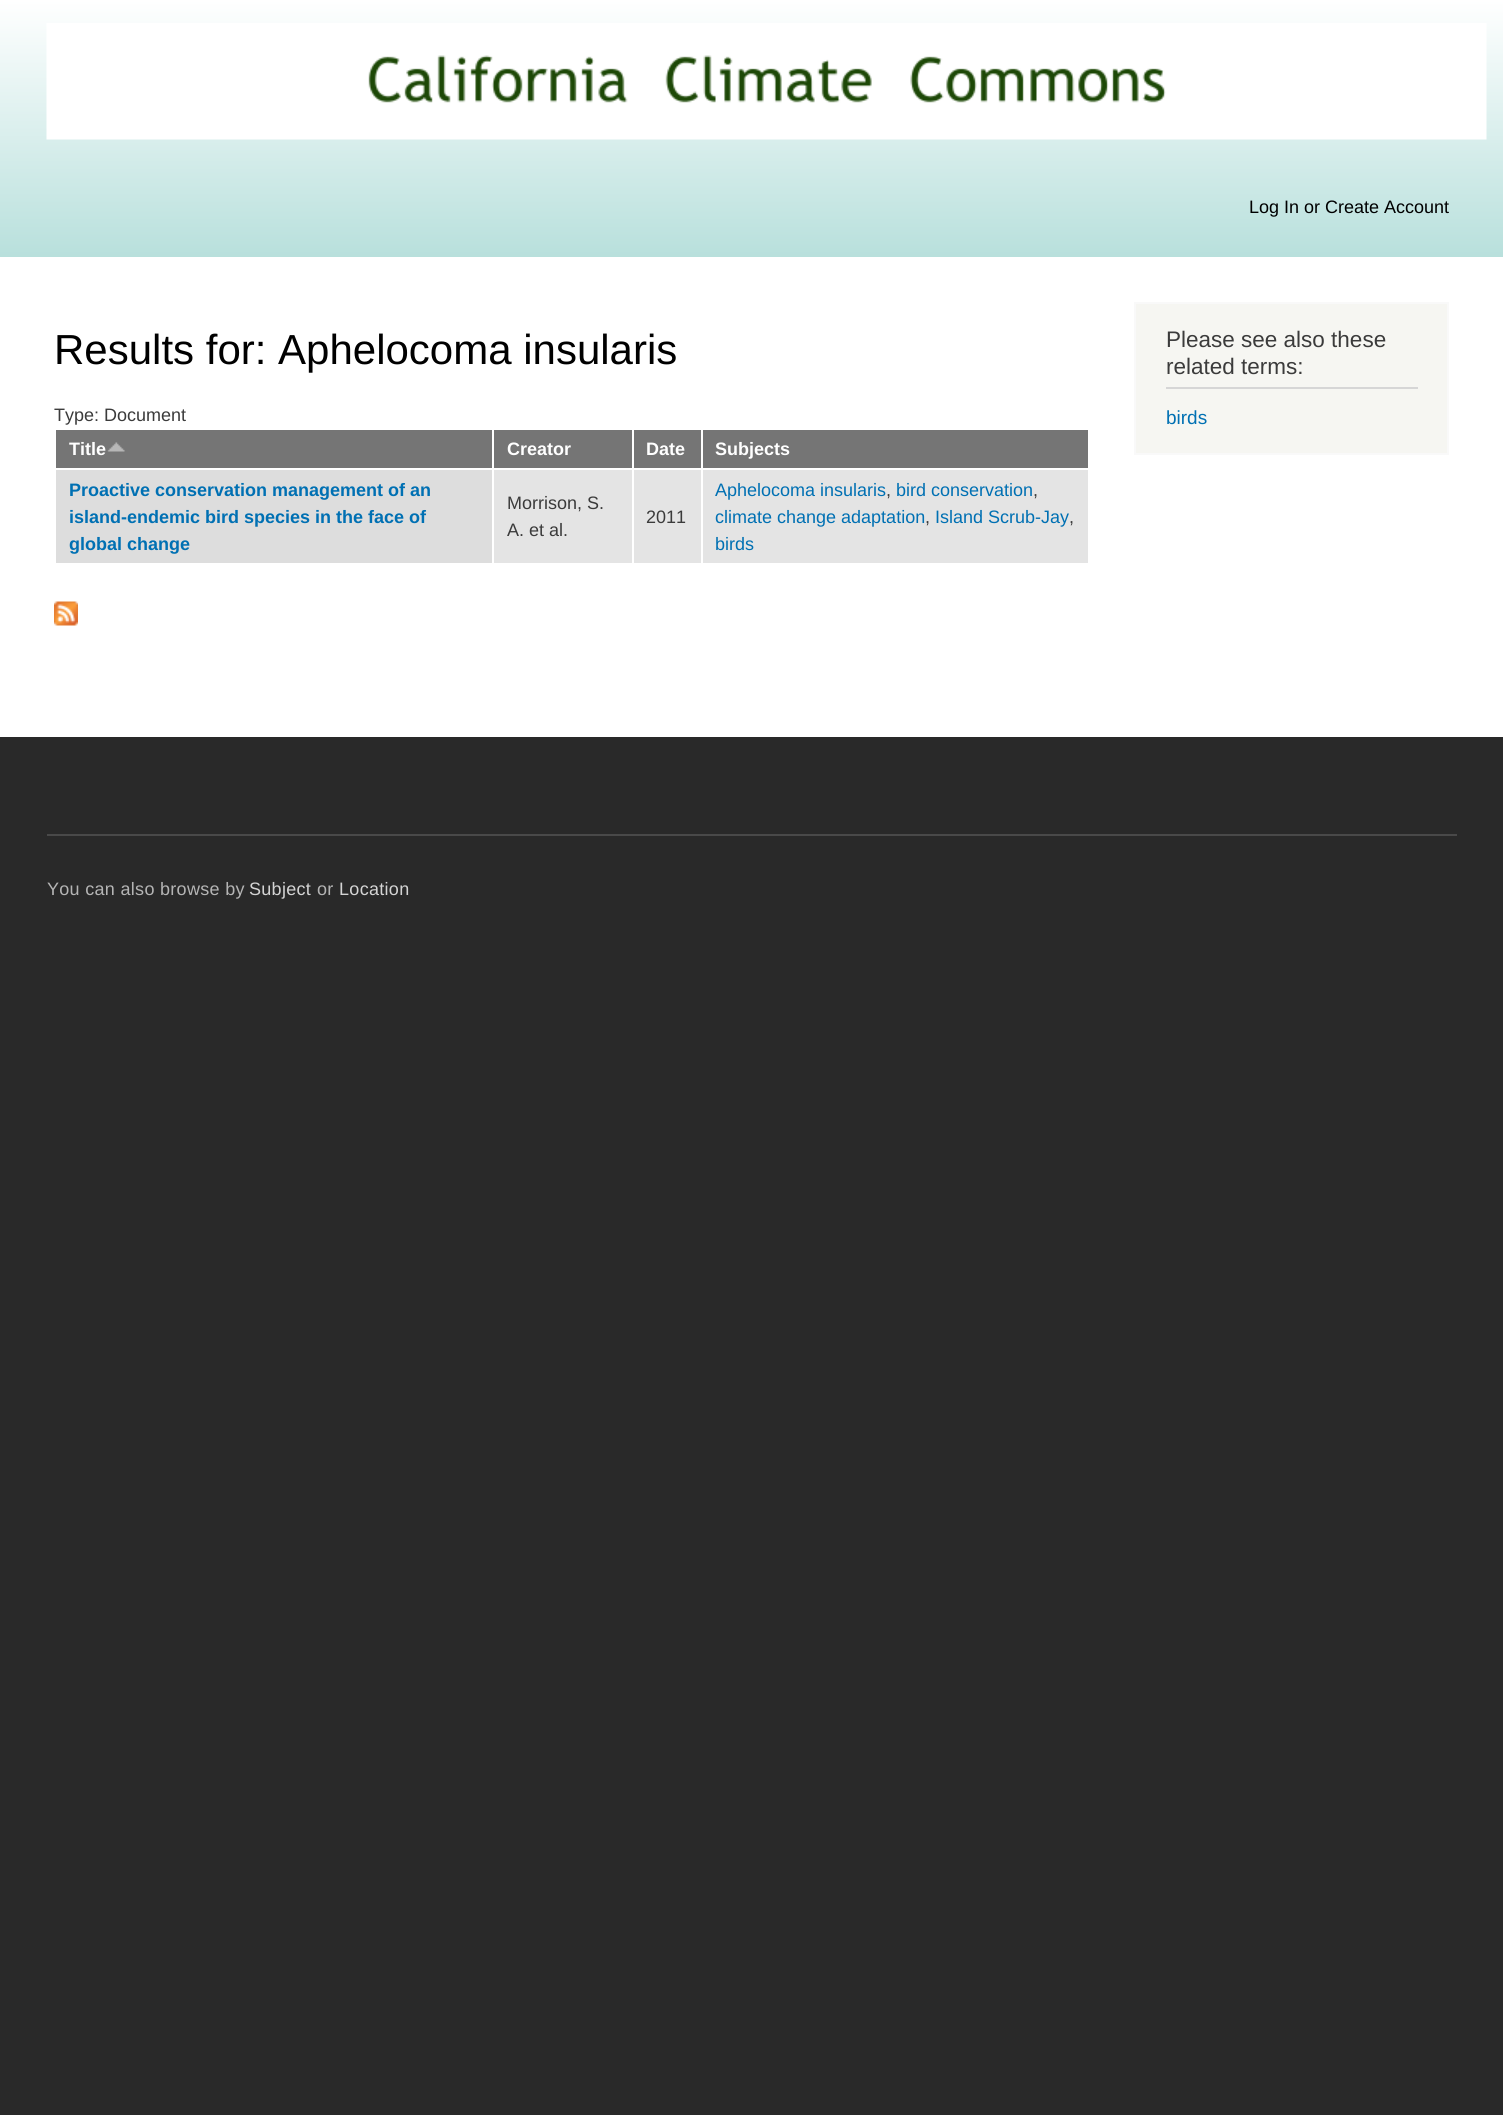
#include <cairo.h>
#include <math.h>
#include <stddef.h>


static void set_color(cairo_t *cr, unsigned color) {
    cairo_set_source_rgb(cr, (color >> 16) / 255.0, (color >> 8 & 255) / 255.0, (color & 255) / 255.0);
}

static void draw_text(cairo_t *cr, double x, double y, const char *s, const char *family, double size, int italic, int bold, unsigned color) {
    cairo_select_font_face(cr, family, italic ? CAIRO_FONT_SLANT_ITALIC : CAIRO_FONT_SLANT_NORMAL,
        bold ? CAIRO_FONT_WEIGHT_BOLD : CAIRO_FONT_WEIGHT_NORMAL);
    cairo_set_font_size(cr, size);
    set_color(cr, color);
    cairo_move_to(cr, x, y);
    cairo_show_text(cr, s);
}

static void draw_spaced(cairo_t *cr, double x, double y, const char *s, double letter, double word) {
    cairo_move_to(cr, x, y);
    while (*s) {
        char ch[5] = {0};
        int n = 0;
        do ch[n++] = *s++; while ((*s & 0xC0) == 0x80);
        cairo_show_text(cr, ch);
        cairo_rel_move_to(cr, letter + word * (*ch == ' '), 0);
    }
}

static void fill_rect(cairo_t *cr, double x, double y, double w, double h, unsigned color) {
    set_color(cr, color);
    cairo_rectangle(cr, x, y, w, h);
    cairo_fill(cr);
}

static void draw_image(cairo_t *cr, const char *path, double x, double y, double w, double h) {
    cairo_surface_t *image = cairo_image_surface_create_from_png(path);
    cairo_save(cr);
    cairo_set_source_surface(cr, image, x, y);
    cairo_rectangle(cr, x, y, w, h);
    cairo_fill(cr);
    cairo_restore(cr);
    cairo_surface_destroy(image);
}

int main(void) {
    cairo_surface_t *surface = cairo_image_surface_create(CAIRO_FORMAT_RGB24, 1503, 2115);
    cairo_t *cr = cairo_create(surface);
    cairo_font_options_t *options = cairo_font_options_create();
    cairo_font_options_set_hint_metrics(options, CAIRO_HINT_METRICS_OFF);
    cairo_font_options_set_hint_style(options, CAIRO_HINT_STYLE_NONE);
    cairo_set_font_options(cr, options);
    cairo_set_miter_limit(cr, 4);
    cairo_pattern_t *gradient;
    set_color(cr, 0x292929);
    cairo_paint(cr);
    fill_rect(cr, 0, 257, 1503, 480, 0xFFFFFF);
    gradient = cairo_pattern_create_linear(752, 0, 752, 257);
    cairo_pattern_add_color_stop_rgba(gradient, 0, 1, 1, 1, 1);
    cairo_pattern_add_color_stop_rgba(gradient, 1, 0.722, 0.878, 0.863, 1);
    cairo_set_source(cr, gradient);
    cairo_pattern_destroy(gradient);
    cairo_rectangle(cr, 0, 0, 1503, 257);
    cairo_fill(cr);
    draw_image(cr, "assets/img1.png", 46, 23, 1441, 117);
    draw_text(cr, 1249, 213, "Log In or Create Account", "Liberation Sans", 18, 0, 0, 0x000000);
    draw_text(cr, 54, 364, "Results for: Aphelocoma insularis", "Liberation Sans", 42, 0, 0, 0x000000);
    draw_text(cr, 54, 421, "Type: Document", "Liberation Sans", 18, 0, 0, 0x3B3B3B);
    fill_rect(cr, 56, 430, 436, 38, 0x757575);
    draw_text(cr, 69, 455, "Title", "Liberation Sans", 18, 0, 1, 0xFFFFFF);
    draw_image(cr, "assets/img2.png", 107, 442, 18, 10);
    fill_rect(cr, 494, 430, 138, 38, 0x757575);
    draw_text(cr, 507, 455, "Creator", "Liberation Sans", 18, 0, 1, 0xFFFFFF);
    fill_rect(cr, 634, 430, 67, 38, 0x757575);
    draw_text(cr, 646, 455, "Date", "Liberation Sans", 18, 0, 1, 0xFFFFFF);
    fill_rect(cr, 703, 430, 385, 38, 0x757575);
    draw_text(cr, 715, 455, "Subjects", "Liberation Sans", 18, 0, 1, 0xFFFFFF);
    fill_rect(cr, 494, 470, 594, 93, 0xE4E4E4);
    fill_rect(cr, 56, 470, 436, 93, 0xDDDDDD);
    draw_text(cr, 69, 496, "Proactive conservation management of an", "Liberation Sans", 18, 0, 1, 0x0070B3);
    draw_text(cr, 69, 523, "island-endemic bird species in the face of", "Liberation Sans", 18, 0, 1, 0x0070B3);
    draw_text(cr, 69, 550, "global change", "Liberation Sans", 18, 0, 1, 0x0070B3);
    draw_text(cr, 507, 509, "Morrison, S.", "Liberation Sans", 18, 0, 0, 0x3B3B3B);
    draw_text(cr, 507, 536, "A. et al.", "Liberation Sans", 18, 0, 0, 0x3B3B3B);
    fill_rect(cr, 632, 468, 2, 96, 0xFFFFFF);
    draw_text(cr, 646, 523, "2011", "Liberation Sans", 18, 0, 0, 0x3B3B3B);
    fill_rect(cr, 701, 468, 2, 96, 0xFFFFFF);
    draw_text(cr, 715, 496, "Aphelocoma insularis", "Liberation Sans", 18, 0, 0, 0x0070B3);
    draw_text(cr, 886, 496, ",", "Liberation Sans", 18, 0, 0, 0x3B3B3B);
    draw_text(cr, 896, 496, "bird conservation", "Liberation Sans", 18, 0, 0, 0x0070B3);
    draw_text(cr, 1033, 496, ",", "Liberation Sans", 18, 0, 0, 0x3B3B3B);
    draw_text(cr, 715, 523, "climate change adaptation", "Liberation Sans", 18, 0, 0, 0x0070B3);
    draw_text(cr, 925, 523, ",", "Liberation Sans", 18, 0, 0, 0x3B3B3B);
    draw_text(cr, 935, 523, "Island Scrub-Jay", "Liberation Sans", 18, 0, 0, 0x0070B3);
    draw_text(cr, 1069, 523, ",", "Liberation Sans", 18, 0, 0, 0x3B3B3B);
    draw_text(cr, 715, 550, "birds", "Liberation Sans", 18, 0, 0, 0x0070B3);
    draw_image(cr, "assets/img3.png", 54, 601, 24, 25);
    set_color(cr, 0xF6F6F2);
    cairo_rectangle(cr, 1135, 303, 313, 151);
    cairo_fill_preserve(cr);
    set_color(cr, 0xF9F9F9);
    cairo_stroke(cr);
    fill_rect(cr, 1166, 387, 252, 2, 0xD6D6D6);
    draw_text(cr, 1166, 347, "Please see also these", "Liberation Sans", 22.5, 0, 0, 0x3B3B3B);
    draw_text(cr, 1166, 374, "related terms:", "Liberation Sans", 22.5, 0, 0, 0x3B3B3B);
    draw_text(cr, 1166, 424, "birds", "Liberation Sans", 19, 0, 0, 0x0070B3);
    fill_rect(cr, 47, 834, 1410, 2, 0x494949);
    cairo_set_font_size(cr, 18);
    set_color(cr, 0xB4B4B4);
    draw_spaced(cr, 47, 895, "You can also browse by", 0.3, 0);
    set_color(cr, 0xD4D4D4);
    draw_spaced(cr, 249, 895, "Subject", 0.3, 0);
    set_color(cr, 0xB4B4B4);
    draw_spaced(cr, 317, 895, "or", 0.3, 0);
    set_color(cr, 0xD4D4D4);
    draw_spaced(cr, 339, 895, "Location", 0.3, 0);
    cairo_surface_write_to_png(surface, "output.png");
    cairo_font_options_destroy(options);
    cairo_destroy(cr);
    cairo_surface_destroy(surface);
    return 0;
}
